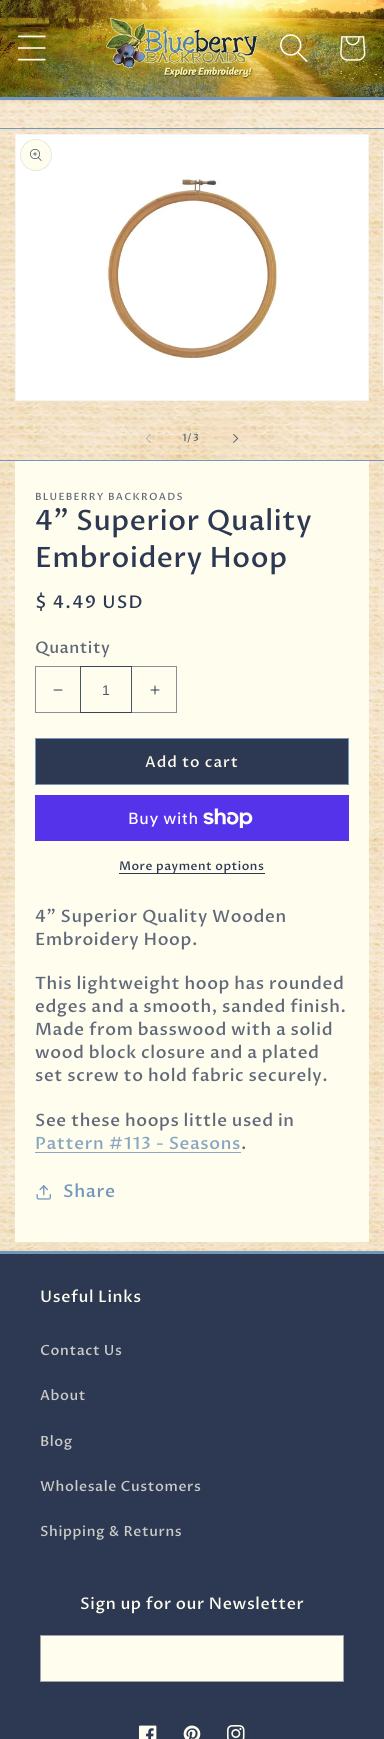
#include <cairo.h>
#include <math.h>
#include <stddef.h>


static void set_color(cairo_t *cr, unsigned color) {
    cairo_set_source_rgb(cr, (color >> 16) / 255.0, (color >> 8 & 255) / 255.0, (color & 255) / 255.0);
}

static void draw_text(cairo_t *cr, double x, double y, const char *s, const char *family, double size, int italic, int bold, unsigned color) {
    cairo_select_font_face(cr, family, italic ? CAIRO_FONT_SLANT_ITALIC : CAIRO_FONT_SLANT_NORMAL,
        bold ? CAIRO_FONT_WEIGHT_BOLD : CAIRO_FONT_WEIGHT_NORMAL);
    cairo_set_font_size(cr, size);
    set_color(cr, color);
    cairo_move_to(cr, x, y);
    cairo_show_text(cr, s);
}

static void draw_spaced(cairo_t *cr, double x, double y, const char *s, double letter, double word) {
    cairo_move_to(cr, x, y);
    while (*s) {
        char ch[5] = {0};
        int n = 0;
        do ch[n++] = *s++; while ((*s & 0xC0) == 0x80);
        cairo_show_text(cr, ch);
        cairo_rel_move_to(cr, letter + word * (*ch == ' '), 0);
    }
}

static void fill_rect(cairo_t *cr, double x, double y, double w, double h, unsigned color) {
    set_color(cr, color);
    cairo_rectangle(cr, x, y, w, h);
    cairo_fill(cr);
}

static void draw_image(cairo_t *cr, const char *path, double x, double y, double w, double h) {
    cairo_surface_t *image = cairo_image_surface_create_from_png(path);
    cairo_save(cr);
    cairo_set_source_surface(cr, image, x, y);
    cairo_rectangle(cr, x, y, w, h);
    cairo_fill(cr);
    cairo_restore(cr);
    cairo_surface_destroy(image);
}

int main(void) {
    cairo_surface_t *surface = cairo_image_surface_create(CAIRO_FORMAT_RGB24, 384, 1739);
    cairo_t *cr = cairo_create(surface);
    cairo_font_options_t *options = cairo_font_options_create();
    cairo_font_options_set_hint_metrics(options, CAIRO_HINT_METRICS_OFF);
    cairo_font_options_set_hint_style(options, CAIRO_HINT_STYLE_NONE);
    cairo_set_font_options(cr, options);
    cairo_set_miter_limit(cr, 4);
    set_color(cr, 0xFFFFFF);
    cairo_paint(cr);
    draw_image(cr, "assets/img1.png", 0, 100, 384, 1151);
    cairo_set_source_rgba(cr, 0.176, 0.22, 0.322, 0.08);
    cairo_rectangle(cr, 0, 100, 384, 1);
    cairo_fill(cr);
    draw_image(cr, "assets/img2.png", 0, 0, 384, 97);
    fill_rect(cr, 0, 97, 384, 3, 0x7396BA);
    draw_image(cr, "assets/img3.png", 17, 35, 29, 26);
    draw_image(cr, "assets/img4.png", 106, 18, 152, 61);
    draw_image(cr, "assets/img5.png", 280, 34, 28, 28);
    draw_image(cr, "assets/img6.png", 340, 36, 26, 25);
    fill_rect(cr, 0, 128, 384, 1, 0x7396BA);
    fill_rect(cr, 0, 460, 384, 1, 0x7396BA);
    set_color(cr, 0xFFFFFF);
    cairo_rectangle(cr, 15.5, 134.5, 353, 266);
    cairo_fill_preserve(cr);
    set_color(cr, 0xF5F5F6);
    cairo_set_line_width(cr, 1);
    cairo_stroke(cr);
    draw_image(cr, "assets/img7.png", 107, 178, 171, 183);
    set_color(cr, 0xFEFDEE);
    cairo_arc(cr, 36, 155, 16, 0, 2 * M_PI);
    cairo_fill(cr);
    cairo_arc(cr, 36, 155, 15.5, 0, 2 * M_PI);
    cairo_set_source_rgba(cr, 0.176, 0.22, 0.322, 0.1);
    cairo_stroke(cr);
    draw_image(cr, "assets/img8.png", 30, 149, 12, 12);
    cairo_rectangle(cr, 383.5, 149.5, 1, 236);
    set_color(cr, 0xF5F5F6);
    cairo_stroke(cr);
    draw_image(cr, "assets/img9.png", 146, 434, 5, 9);
    cairo_select_font_face(cr, "Proza Libre Medium", CAIRO_FONT_SLANT_NORMAL, CAIRO_FONT_WEIGHT_NORMAL);
    cairo_set_font_size(cr, 10);
    set_color(cr, 0x5E626E);
    draw_spaced(cr, 182, 441, "1", 1, 0);
    draw_spaced(cr, 187, 441, "/", 1, 0);
    draw_spaced(cr, 193, 441, "3", 1, 0);
    draw_image(cr, "assets/img10.png", 233, 434, 6, 9);
    fill_rect(cr, 15, 461, 354, 781, 0xFEFDEE);
    set_color(cr, 0x616979);
    draw_spaced(cr, 35, 500, "BLUEBERRY BACKROADS", 1.25, 0);
    cairo_set_font_size(cr, 28);
    set_color(cr, 0x2D3852);
    draw_spaced(cr, 35, 530, "4\" Superior Quality", 0.6, 0);
    draw_spaced(cr, 35, 567, "Embroidery Hoop", 0.6, 0);
    cairo_set_font_size(cr, 17.5);
    draw_spaced(cr, 35, 608, "$ 4.49 USD", 1.25, 0);
    cairo_set_font_size(cr, 16);
    set_color(cr, 0x616979);
    draw_spaced(cr, 35, 653, "Quantity", 0.5, 0);
    draw_image(cr, "assets/img11.png", 53, 689, 10, 2);
    cairo_rectangle(cr, 80.5, 666.5, 51, 46);
    set_color(cr, 0x4C5669);
    cairo_stroke(cr);
    draw_image(cr, "assets/img12.png", 150, 685, 10, 10);
    cairo_rectangle(cr, 35.5, 666.5, 141, 46);
    cairo_set_source_rgba(cr, 0.176, 0.22, 0.322, 0.55);
    cairo_stroke(cr);
    draw_text(cr, 102, 695, "1", "Liberation Sans", 14, 0, 0, 0x4C5669);
    fill_rect(cr, 36, 739, 312, 45, 0x2D3852);
    cairo_rectangle(cr, 35.5, 738.5, 313, 46);
    set_color(cr, 0x7396BA);
    cairo_stroke(cr);
    cairo_select_font_face(cr, "Proza Libre Medium", CAIRO_FONT_SLANT_NORMAL, CAIRO_FONT_WEIGHT_NORMAL);
    cairo_set_font_size(cr, 15);
    set_color(cr, 0xFEFDEE);
    draw_spaced(cr, 145, 767, "Add to cart", 1, 0);
    fill_rect(cr, 35, 795, 314, 46, 0x5433EB);
    cairo_select_font_face(cr, "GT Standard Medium", CAIRO_FONT_SLANT_NORMAL, CAIRO_FONT_WEIGHT_NORMAL);
    cairo_set_font_size(cr, 16);
    set_color(cr, 0xFFFFFF);
    draw_spaced(cr, 128, 824, "Buy with", 0.6, 0);
    draw_image(cr, "assets/img13.png", 203, 808, 50, 20);
    fill_rect(cr, 119, 873, 146, 1, 0x2D3852);
    cairo_select_font_face(cr, "Proza Libre Medium", CAIRO_FONT_SLANT_NORMAL, CAIRO_FONT_WEIGHT_NORMAL);
    cairo_set_font_size(cr, 12);
    draw_spaced(cr, 119, 870, "More payment options", 0.5, 0);
    cairo_set_font_size(cr, 17);
    set_color(cr, 0x616979);
    draw_spaced(cr, 35, 922, "4\" Superior Quality Wooden", 0.6, 0);
    draw_spaced(cr, 35, 945, "Embroidery Hoop.", 0.6, 0);
    draw_spaced(cr, 35, 989, "This lightweight hoop has rounded", 0.6, 0);
    draw_spaced(cr, 35, 1012, "edges and a smooth, sanded finish.", 0.6, 0);
    draw_spaced(cr, 35, 1035, "Made from basswood with a solid", 0.6, 0);
    draw_spaced(cr, 35, 1058, "wood block closure and a plated", 0.6, 0);
    draw_spaced(cr, 35, 1081, "set screw to hold fabric securely.", 0.6, 0);
    draw_spaced(cr, 35, 1126, "See these hoops little used in", 0.6, 0);
    set_color(cr, 0x88A5C2);
    draw_spaced(cr, 35, 1149, "Pattern #113 - Seasons", 0.6, 0);
    fill_rect(cr, 35, 1152, 206, 1, 0x88A5C2);
    set_color(cr, 0x616979);
    draw_spaced(cr, 241, 1149, ".", 0.6, 0);
    draw_image(cr, "assets/img14.png", 36, 1185, 15, 15);
    cairo_set_font_size(cr, 17.5);
    set_color(cr, 0x7396BA);
    draw_spaced(cr, 63, 1197, "Share", 0.6, 0);
    fill_rect(cr, 0, 1254, 384, 485, 0x2D3852);
    fill_rect(cr, 0, 1251, 384, 3, 0x7396BA);
    cairo_set_font_size(cr, 16);
    set_color(cr, 0xFEFDEE);
    draw_spaced(cr, 40, 1302, "Useful Links", 0.6, 0);
    cairo_set_font_size(cr, 14);
    set_color(cr, 0xCACCC7);
    draw_spaced(cr, 40, 1355, "Contact Us", 0.6, 0);
    draw_spaced(cr, 40, 1400, "About", 0.6, 0);
    draw_spaced(cr, 40, 1446, "Blog", 0.6, 0);
    draw_spaced(cr, 40, 1491, "Wholesale Customers", 0.6, 0);
    draw_spaced(cr, 40, 1536, "Shipping & Returns", 0.6, 0);
    cairo_set_font_size(cr, 16);
    set_color(cr, 0xFEFDEE);
    draw_spaced(cr, 80, 1609, "Sign up for our Newsletter", 0.6, 0);
    cairo_rectangle(cr, 40.5, 1635.5, 303, 46);
    cairo_fill_preserve(cr);
    set_color(cr, 0xA0A4A8);
    cairo_stroke(cr);
    draw_image(cr, "assets/img15.png", 139, 1725, 18, 14);
    draw_image(cr, "assets/img16.png", 183, 1725, 18, 14);
    draw_image(cr, "assets/img17.png", 227, 1725, 18, 14);
    cairo_surface_write_to_png(surface, "output.png");
    cairo_font_options_destroy(options);
    cairo_destroy(cr);
    cairo_surface_destroy(surface);
    return 0;
}
